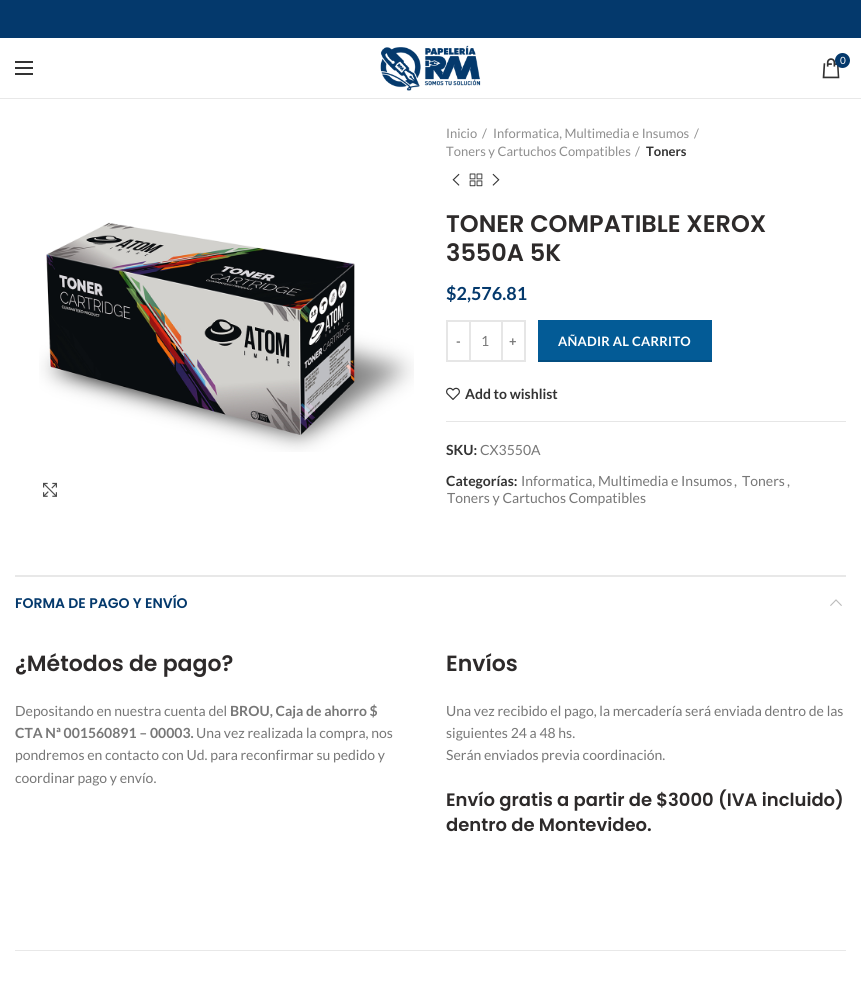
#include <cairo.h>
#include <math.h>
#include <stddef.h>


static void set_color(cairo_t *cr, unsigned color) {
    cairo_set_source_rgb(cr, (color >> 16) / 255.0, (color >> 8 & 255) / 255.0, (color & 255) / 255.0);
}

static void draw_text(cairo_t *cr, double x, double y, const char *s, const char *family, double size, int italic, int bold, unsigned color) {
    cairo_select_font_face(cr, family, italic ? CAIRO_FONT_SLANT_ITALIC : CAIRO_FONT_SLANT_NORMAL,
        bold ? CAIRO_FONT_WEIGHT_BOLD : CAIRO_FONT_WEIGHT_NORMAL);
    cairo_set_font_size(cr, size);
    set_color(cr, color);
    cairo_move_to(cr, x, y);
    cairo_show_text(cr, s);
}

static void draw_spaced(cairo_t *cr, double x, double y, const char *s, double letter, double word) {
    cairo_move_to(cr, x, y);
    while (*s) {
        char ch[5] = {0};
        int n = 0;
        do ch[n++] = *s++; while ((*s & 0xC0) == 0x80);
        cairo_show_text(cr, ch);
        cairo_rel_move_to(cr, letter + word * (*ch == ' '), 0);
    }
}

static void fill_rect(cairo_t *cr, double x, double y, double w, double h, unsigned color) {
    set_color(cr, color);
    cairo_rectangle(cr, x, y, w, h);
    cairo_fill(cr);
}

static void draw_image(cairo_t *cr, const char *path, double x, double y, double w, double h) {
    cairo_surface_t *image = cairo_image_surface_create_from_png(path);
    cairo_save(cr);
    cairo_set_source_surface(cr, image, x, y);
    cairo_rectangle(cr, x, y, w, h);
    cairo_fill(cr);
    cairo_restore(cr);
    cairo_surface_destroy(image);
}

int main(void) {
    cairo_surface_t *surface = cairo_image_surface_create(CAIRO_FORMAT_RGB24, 861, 997);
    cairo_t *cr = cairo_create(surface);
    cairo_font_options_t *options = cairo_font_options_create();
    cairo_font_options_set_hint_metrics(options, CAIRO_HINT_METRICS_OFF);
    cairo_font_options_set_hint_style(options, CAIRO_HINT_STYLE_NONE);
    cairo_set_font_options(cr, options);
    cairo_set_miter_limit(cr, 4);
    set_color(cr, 0xFFFFFF);
    cairo_paint(cr);
    fill_rect(cr, 0, 0, 861, 38, 0x04396C);
    fill_rect(cr, 0, 98, 861, 1, 0xE8E8E8);
    fill_rect(cr, 15, 67, 18, 2, 0x333333);
    fill_rect(cr, 15, 61, 18, 2, 0x333333);
    fill_rect(cr, 15, 73, 18, 2, 0x333333);
    draw_image(cr, "assets/img1.png", 380, 45, 101, 46);
    draw_image(cr, "assets/img2.png", 822, 58, 18, 21);
    set_color(cr, 0x04396C);
    cairo_arc(cr, 842.5, 60.5, 7.5, 0, 2 * M_PI);
    cairo_fill(cr);
    draw_text(cr, 840, 64, "0", "Lato", 10, 0, 0, 0xFFFFFF);
    draw_image(cr, "assets/img3.png", 39, 222, 375, 230);
    draw_image(cr, "assets/img4.png", 43, 482, 14, 15);
    draw_text(cr, 446, 138, "Inicio", "Lato", 13, 0, 0, 0x8E8E8E);
    draw_text(cr, 482, 138, "/", "Lato", 13, 0, 0, 0x8E8E8E);
    draw_text(cr, 493, 138, "Informatica, Multimedia e Insumos", "Lato", 13, 0, 0, 0x8E8E8E);
    draw_text(cr, 694, 138, "/", "Lato", 13, 0, 0, 0x8E8E8E);
    draw_text(cr, 446, 156, "Toners y Cartuchos Compatibles", "Lato", 13, 0, 0, 0x8E8E8E);
    draw_text(cr, 635, 156, "/", "Lato", 13, 0, 0, 0x8E8E8E);
    draw_text(cr, 646, 156, "Toners", "Lato", 13, 0, 1, 0x333333);
    draw_image(cr, "assets/img5.png", 452, 173, 8, 13);
    draw_image(cr, "assets/img6.png", 469, 173, 14, 14);
    draw_image(cr, "assets/img7.png", 492, 173, 8, 13);
    draw_text(cr, 446, 232, "TONER COMPATIBLE XEROX", "Poppins SemiBold", 24, 0, 0, 0x2D2A2A);
    draw_text(cr, 446, 261, "3550A 5K", "Poppins SemiBold", 24, 0, 0, 0x2D2A2A);
    draw_text(cr, 446, 300, "$2,576.81", "Lato", 18, 0, 1, 0x04396C);
    cairo_rectangle(cr, 447, 321, 23, 40);
    set_color(cr, 0xE6E6E6);
    cairo_stroke(cr);
    cairo_set_font_size(cr, 13);
    set_color(cr, 0x777777);
    draw_spaced(cr, 456, 346, "-", 0.25, 0);
    fill_rect(cr, 471, 320, 30, 2, 0xE6E6E6);
    fill_rect(cr, 471, 360, 30, 2, 0xE6E6E6);
    draw_text(cr, 481, 346, "1", "Lato", 14, 0, 0, 0x777777);
    cairo_rectangle(cr, 502, 321, 23, 40);
    set_color(cr, 0xE6E6E6);
    cairo_stroke(cr);
    cairo_select_font_face(cr, "Lato", CAIRO_FONT_SLANT_NORMAL, CAIRO_FONT_WEIGHT_BOLD);
    cairo_set_font_size(cr, 13);
    set_color(cr, 0x777777);
    draw_spaced(cr, 509, 346, "+", 0.25, 0);
    fill_rect(cr, 538, 320, 174, 40, 0x035B96);
    fill_rect(cr, 538, 360, 174, 2, 0x034D80);
    set_color(cr, 0xFFFFFF);
    draw_spaced(cr, 558, 346, "AÑADIR AL CARRITO", 0.25, 0);
    draw_image(cr, "assets/img8.png", 446, 387, 14, 13);
    draw_text(cr, 465, 399, "Add to wishlist", "Lato", 14, 0, 1, 0x333333);
    fill_rect(cr, 446, 421, 400, 1, 0xE6E6E6);
    draw_text(cr, 446, 455, "SKU:", "Lato", 14, 0, 1, 0x333333);
    draw_text(cr, 480, 455, "CX3550A", "Lato", 14, 0, 0, 0x777777);
    draw_text(cr, 446, 486, "Categorías:", "Lato", 14, 0, 1, 0x333333);
    draw_text(cr, 521, 486, "Informatica, Multimedia e Insumos", "Lato", 14, 0, 0, 0x777777);
    draw_text(cr, 734, 486, ",", "Lato", 14, 0, 0, 0x777777);
    draw_text(cr, 742, 486, "Toners", "Lato", 14, 0, 0, 0x777777);
    draw_text(cr, 787, 486, ",", "Lato", 14, 0, 0, 0x777777);
    draw_text(cr, 447, 503, "Toners y Cartuchos Compatibles", "Lato", 14, 0, 0, 0x777777);
    fill_rect(cr, 15, 575, 831, 2, 0xE8E8E8);
    fill_rect(cr, 15, 950, 831, 1, 0xE8E8E8);
    draw_text(cr, 15, 608, "FORMA DE PAGO Y ENVÍO", "Poppins SemiBold", 14, 0, 0, 0x04396C);
    draw_image(cr, "assets/img9.png", 830, 599, 12, 7);
    draw_text(cr, 15, 671, "¿Métodos de pago?", "Poppins SemiBold", 22, 0, 0, 0x2D2A2A);
    draw_text(cr, 15, 716, "Depositando en nuestra cuenta del", "Lato", 14, 0, 0, 0x777777);
    draw_text(cr, 230, 716, "BROU, Caja de ahorro $", "Lato", 14, 0, 1, 0x777777);
    draw_text(cr, 15, 738, "CTA Nª 001560891 – 00003.", "Lato", 14, 0, 1, 0x777777);
    draw_text(cr, 196, 738, "Una vez realizada la compra, nos", "Lato", 14, 0, 0, 0x777777);
    draw_text(cr, 15, 760, "pondremos en contacto con Ud. para reconfirmar su pedido y", "Lato", 14, 0, 0, 0x777777);
    draw_text(cr, 15, 783, "coordinar pago y envío.", "Lato", 14, 0, 0, 0x777777);
    draw_text(cr, 446, 671, "Envíos", "Poppins SemiBold", 22, 0, 0, 0x2D2A2A);
    draw_text(cr, 446, 716, "Una vez recibido el pago, la mercadería será enviada dentro de las", "Lato", 14, 0, 0, 0x777777);
    draw_text(cr, 446, 738, "siguientes 24 a 48 hs.", "Lato", 14, 0, 0, 0x777777);
    draw_text(cr, 446, 760, "Serán enviados previa coordinación.", "Lato", 14, 0, 0, 0x777777);
    draw_text(cr, 446, 806, "Envío gratis a partir de $3000 (IVA incluido)", "Poppins SemiBold", 18, 0, 0, 0x2D2A2A);
    draw_text(cr, 446, 831, "dentro de Montevideo.", "Poppins SemiBold", 18, 0, 0, 0x2D2A2A);
    cairo_surface_write_to_png(surface, "output.png");
    cairo_font_options_destroy(options);
    cairo_destroy(cr);
    cairo_surface_destroy(surface);
    return 0;
}
